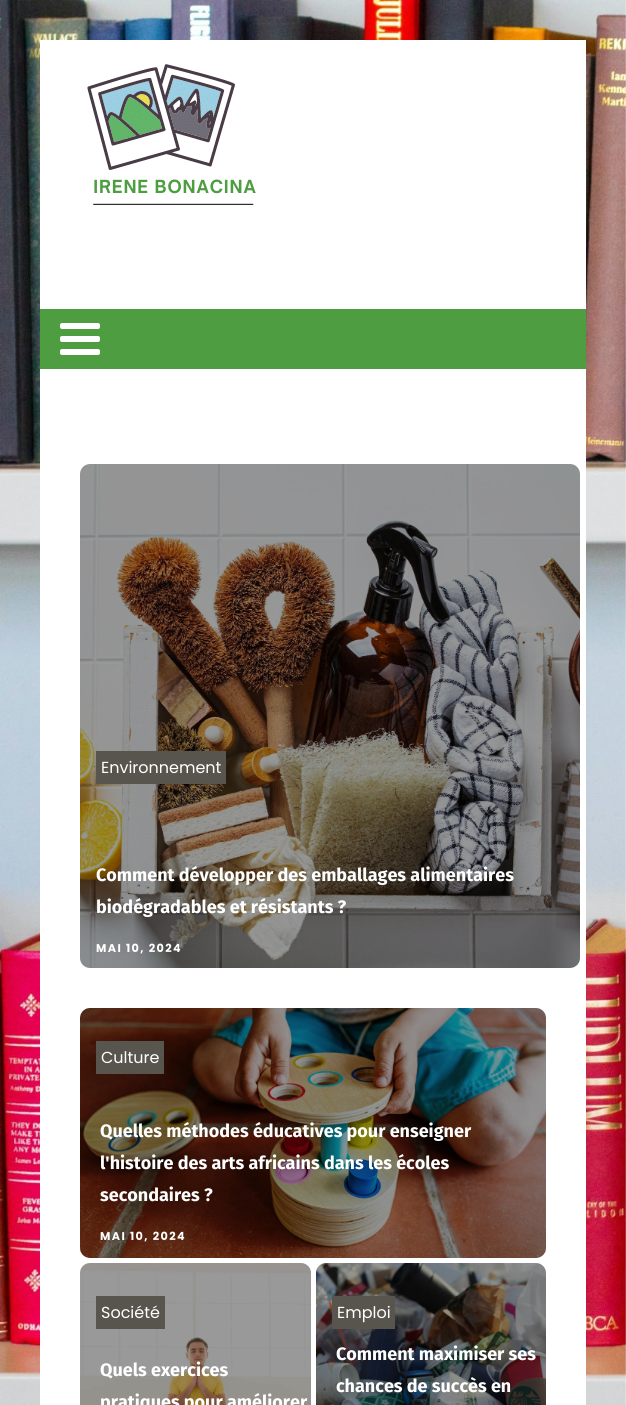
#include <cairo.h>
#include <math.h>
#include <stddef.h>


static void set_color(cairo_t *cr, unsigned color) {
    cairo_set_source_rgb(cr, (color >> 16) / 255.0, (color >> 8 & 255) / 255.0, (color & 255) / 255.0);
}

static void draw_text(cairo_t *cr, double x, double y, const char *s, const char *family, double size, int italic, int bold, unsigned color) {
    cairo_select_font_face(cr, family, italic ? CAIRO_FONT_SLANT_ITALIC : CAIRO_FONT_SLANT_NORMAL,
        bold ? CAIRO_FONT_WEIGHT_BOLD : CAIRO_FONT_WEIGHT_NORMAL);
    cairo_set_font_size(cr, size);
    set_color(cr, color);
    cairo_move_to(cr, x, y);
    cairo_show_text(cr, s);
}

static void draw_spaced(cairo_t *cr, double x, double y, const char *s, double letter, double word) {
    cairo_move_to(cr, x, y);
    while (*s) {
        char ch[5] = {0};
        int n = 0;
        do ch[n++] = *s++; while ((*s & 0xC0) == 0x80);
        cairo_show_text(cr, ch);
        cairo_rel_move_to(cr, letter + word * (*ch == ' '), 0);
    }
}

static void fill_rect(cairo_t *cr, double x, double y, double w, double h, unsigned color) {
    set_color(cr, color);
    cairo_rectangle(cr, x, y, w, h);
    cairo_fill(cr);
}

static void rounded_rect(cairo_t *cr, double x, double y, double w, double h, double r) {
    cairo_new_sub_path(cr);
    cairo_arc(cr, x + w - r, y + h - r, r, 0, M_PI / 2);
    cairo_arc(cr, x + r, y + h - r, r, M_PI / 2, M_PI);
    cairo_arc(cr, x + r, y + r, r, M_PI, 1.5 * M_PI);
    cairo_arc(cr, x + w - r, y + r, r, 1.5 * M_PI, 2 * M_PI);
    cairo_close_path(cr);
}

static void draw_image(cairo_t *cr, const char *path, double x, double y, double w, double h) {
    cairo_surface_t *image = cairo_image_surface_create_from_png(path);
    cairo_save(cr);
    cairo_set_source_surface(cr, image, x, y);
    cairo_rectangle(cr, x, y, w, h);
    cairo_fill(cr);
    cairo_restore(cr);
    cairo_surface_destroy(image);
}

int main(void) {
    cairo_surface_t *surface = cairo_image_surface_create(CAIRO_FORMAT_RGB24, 626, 1405);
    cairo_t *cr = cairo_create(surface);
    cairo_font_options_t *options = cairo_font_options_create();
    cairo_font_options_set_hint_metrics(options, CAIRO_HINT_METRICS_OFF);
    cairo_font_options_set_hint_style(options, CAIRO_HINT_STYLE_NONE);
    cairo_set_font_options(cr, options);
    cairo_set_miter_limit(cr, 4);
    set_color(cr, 0xFFFFFF);
    cairo_paint(cr);
    draw_image(cr, "assets/img1.png", 0, 0, 626, 1405);
    fill_rect(cr, 40, 40, 546, 1365, 0xFFFFFF);
    draw_image(cr, "assets/img2.png", 87, 64, 169, 141);
    fill_rect(cr, 40, 309, 546, 60, 0x4E9D41);
    set_color(cr, 0xFFFFFF);
    rounded_rect(cr, 60, 323, 40, 6, 2);
    cairo_fill(cr);
    rounded_rect(cr, 60, 336, 40, 6, 2);
    cairo_fill(cr);
    rounded_rect(cr, 60, 349, 40, 6, 2);
    cairo_fill(cr);
    draw_image(cr, "assets/img3.png", 80, 464, 500, 504);
    cairo_set_source_rgba(cr, 0, 0, 0, 0.4);
    rounded_rect(cr, 80, 464, 500, 504, 10);
    cairo_fill(cr);
    fill_rect(cr, 96, 751, 130, 33, 0x57554D);
    draw_text(cr, 101, 773, "Environnement", "Poppins", 16, 0, 0, 0xFFFFFF);
    draw_text(cr, 96, 881, "Comment développer des emballages alimentaires", "Fira Sans", 18, 0, 1, 0xFFFFFF);
    draw_text(cr, 96, 913, "biodégradables et résistants ?", "Fira Sans", 18, 0, 1, 0xFFFFFF);
    cairo_select_font_face(cr, "Poppins", CAIRO_FONT_SLANT_NORMAL, CAIRO_FONT_WEIGHT_BOLD);
    cairo_set_font_size(cr, 11.25);
    draw_spaced(cr, 96, 952, "MAI 10, 2024", 1.4, 0);
    draw_image(cr, "assets/img4.png", 80, 1008, 466, 250);
    cairo_set_source_rgba(cr, 0, 0, 0, 0.4);
    rounded_rect(cr, 80, 1008, 466, 250, 10);
    cairo_fill(cr);
    fill_rect(cr, 96, 1041, 68, 33, 0x57554D);
    draw_text(cr, 101, 1063, "Culture", "Poppins", 16, 0, 0, 0xFFFFFF);
    draw_text(cr, 100, 1137, "Quelles méthodes éducatives pour enseigner", "Fira Sans", 18, 0, 1, 0xFFFFFF);
    draw_text(cr, 100, 1169, "l'histoire des arts africains dans les écoles", "Fira Sans", 18, 0, 1, 0xFFFFFF);
    draw_text(cr, 100, 1201, "secondaires ?", "Fira Sans", 18, 0, 1, 0xFFFFFF);
    cairo_select_font_face(cr, "Poppins", CAIRO_FONT_SLANT_NORMAL, CAIRO_FONT_WEIGHT_BOLD);
    cairo_set_font_size(cr, 11.25);
    draw_spaced(cr, 100, 1240, "MAI 10, 2024", 1.4, 0);
    draw_image(cr, "assets/img5.png", 80, 1263, 231, 142);
    cairo_set_source_rgba(cr, 0, 0, 0, 0.4);
    rounded_rect(cr, 80, 1263, 231, 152, 10);
    cairo_fill(cr);
    fill_rect(cr, 96, 1296, 69, 33, 0x57554D);
    draw_text(cr, 101, 1318, "Société", "Poppins", 16, 0, 0, 0xFFFFFF);
    draw_text(cr, 100, 1376, "Quels exercices", "Fira Sans", 18, 0, 1, 0xFFFFFF);
    draw_text(cr, 100, 1408, "pratiques pour améliorer", "Fira Sans", 18, 0, 1, 0xFFFFFF);
    draw_image(cr, "assets/img6.png", 316, 1263, 230, 142);
    cairo_set_source_rgba(cr, 0, 0, 0, 0.4);
    rounded_rect(cr, 316, 1263, 230, 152, 10);
    cairo_fill(cr);
    fill_rect(cr, 332, 1296, 63, 33, 0x57554D);
    draw_text(cr, 337, 1318, "Emploi", "Poppins", 16, 0, 0, 0xFFFFFF);
    draw_text(cr, 336, 1360, "Comment maximiser ses", "Fira Sans", 18, 0, 1, 0xFFFFFF);
    draw_text(cr, 336, 1392, "chances de succès en", "Fira Sans", 18, 0, 1, 0xFFFFFF);
    cairo_surface_write_to_png(surface, "output.png");
    cairo_font_options_destroy(options);
    cairo_destroy(cr);
    cairo_surface_destroy(surface);
    return 0;
}
